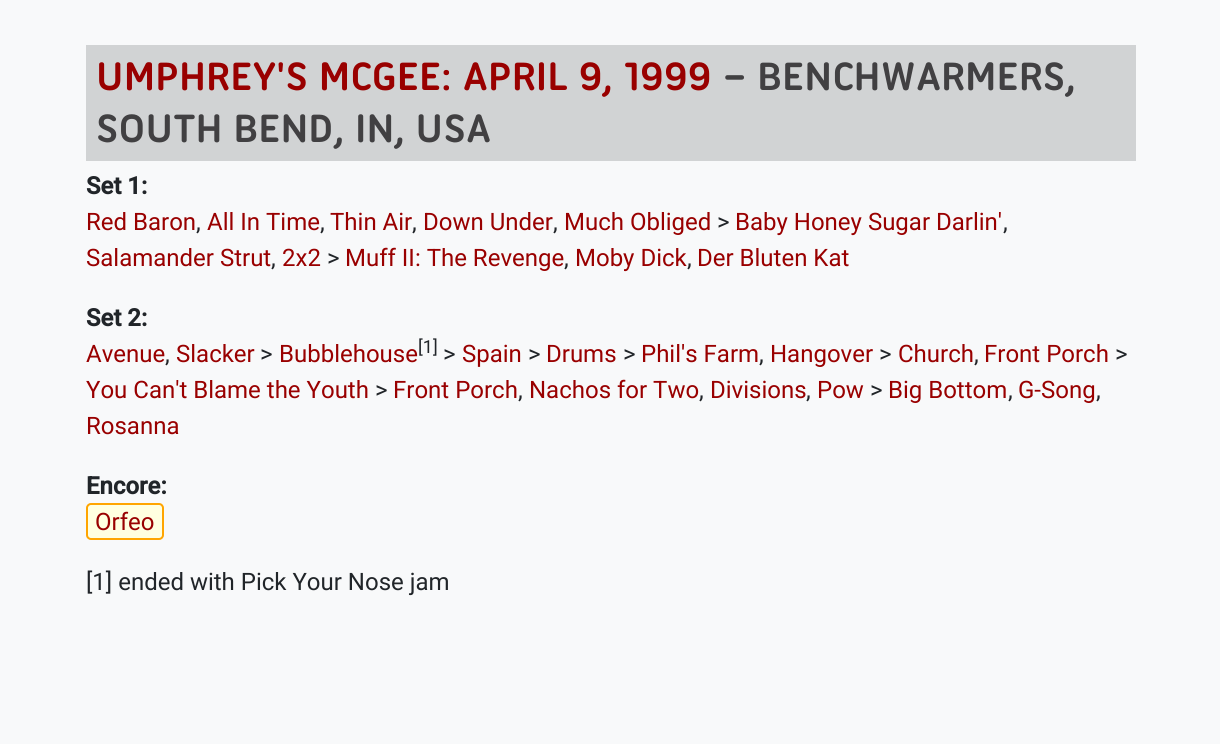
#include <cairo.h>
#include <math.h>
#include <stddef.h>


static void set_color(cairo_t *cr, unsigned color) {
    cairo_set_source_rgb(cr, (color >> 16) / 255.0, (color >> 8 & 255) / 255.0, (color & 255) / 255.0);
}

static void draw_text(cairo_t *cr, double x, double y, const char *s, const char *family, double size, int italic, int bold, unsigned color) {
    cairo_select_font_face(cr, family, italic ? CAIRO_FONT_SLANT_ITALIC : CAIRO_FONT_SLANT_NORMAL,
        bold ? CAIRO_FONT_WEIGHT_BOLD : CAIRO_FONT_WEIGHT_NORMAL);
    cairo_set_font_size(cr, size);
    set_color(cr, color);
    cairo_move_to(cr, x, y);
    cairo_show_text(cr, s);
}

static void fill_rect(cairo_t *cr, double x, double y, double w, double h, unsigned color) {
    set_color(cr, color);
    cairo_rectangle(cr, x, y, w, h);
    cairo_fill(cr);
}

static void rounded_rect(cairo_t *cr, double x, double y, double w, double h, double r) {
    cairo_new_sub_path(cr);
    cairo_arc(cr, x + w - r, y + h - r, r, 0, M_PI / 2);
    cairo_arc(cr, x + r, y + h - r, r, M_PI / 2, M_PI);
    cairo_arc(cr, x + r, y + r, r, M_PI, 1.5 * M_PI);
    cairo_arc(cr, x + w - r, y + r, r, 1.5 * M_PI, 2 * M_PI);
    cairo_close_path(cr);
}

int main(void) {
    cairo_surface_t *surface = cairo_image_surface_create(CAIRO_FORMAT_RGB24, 1220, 744);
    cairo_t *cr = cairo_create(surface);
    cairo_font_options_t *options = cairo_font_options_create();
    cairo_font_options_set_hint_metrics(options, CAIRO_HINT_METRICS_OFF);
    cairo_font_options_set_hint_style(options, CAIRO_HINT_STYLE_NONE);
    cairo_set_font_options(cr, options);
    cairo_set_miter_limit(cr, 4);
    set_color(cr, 0xF8F9FA);
    cairo_paint(cr);
    fill_rect(cr, 86, 45, 1050, 116, 0xD1D3D4);
    draw_text(cr, 96, 90, "UMPHREY'S MCGEE: APRIL 9, 1999", "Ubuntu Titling", 42.75, 0, 1, 0x990000);
    draw_text(cr, 723, 90, "– BENCHWARMERS,", "Ubuntu Titling", 42.75, 0, 1, 0x414042);
    draw_text(cr, 96, 142, "SOUTH BEND, IN, USA", "Ubuntu Titling", 42.75, 0, 1, 0x414042);
    draw_text(cr, 86, 194, "Set 1:", "Roboto", 24, 0, 1, 0x212529);
    draw_text(cr, 86, 230, "Red Baron", "Roboto", 24, 0, 0, 0x990000);
    draw_text(cr, 207, 230, "All In Time", "Roboto", 24, 0, 0, 0x990000);
    draw_text(cr, 330, 230, "Thin Air", "Roboto", 24, 0, 0, 0x990000);
    draw_text(cr, 423, 230, "Down Under", "Roboto", 24, 0, 0, 0x990000);
    draw_text(cr, 564, 230, "Much Obliged", "Roboto", 24, 0, 0, 0x990000);
    draw_text(cr, 717, 230, ">", "Roboto", 24, 0, 0, 0x212529);
    draw_text(cr, 735, 230, "Baby Honey Sugar Darlin'", "Roboto", 24, 0, 0, 0x990000);
    draw_text(cr, 196, 230, ",", "Roboto", 24, 0, 0, 0x212529);
    draw_text(cr, 320, 230, ",", "Roboto", 24, 0, 0, 0x212529);
    draw_text(cr, 412, 230, ",", "Roboto", 24, 0, 0, 0x212529);
    draw_text(cr, 553, 230, ",", "Roboto", 24, 0, 0, 0x212529);
    draw_text(cr, 1003, 230, ",", "Roboto", 24, 0, 0, 0x212529);
    draw_text(cr, 86, 266, "Salamander Strut", "Roboto", 24, 0, 0, 0x990000);
    draw_text(cr, 282, 266, "2x2", "Roboto", 24, 0, 0, 0x990000);
    draw_text(cr, 327, 266, ">", "Roboto", 24, 0, 0, 0x212529);
    draw_text(cr, 345, 266, "Muff II: The Revenge", "Roboto", 24, 0, 0, 0x990000);
    draw_text(cr, 575, 266, "Moby Dick", "Roboto", 24, 0, 0, 0x990000);
    draw_text(cr, 697, 266, "Der Bluten Kat", "Roboto", 24, 0, 0, 0x990000);
    draw_text(cr, 271, 266, ",", "Roboto", 24, 0, 0, 0x212529);
    draw_text(cr, 564, 266, ",", "Roboto", 24, 0, 0, 0x212529);
    draw_text(cr, 687, 266, ",", "Roboto", 24, 0, 0, 0x212529);
    draw_text(cr, 86, 326, "Set 2:", "Roboto", 24, 0, 1, 0x212529);
    draw_text(cr, 86, 362, "Avenue", "Roboto", 24, 0, 0, 0x990000);
    draw_text(cr, 176, 362, "Slacker", "Roboto", 24, 0, 0, 0x990000);
    draw_text(cr, 260, 362, ">", "Roboto", 24, 0, 0, 0x212529);
    draw_text(cr, 279, 362, "Bubblehouse", "Roboto", 24, 0, 0, 0x990000);
    draw_text(cr, 418, 353, "[1]", "Roboto", 18, 0, 0, 0x212529);
    draw_text(cr, 443, 362, ">", "Roboto", 24, 0, 0, 0x212529);
    draw_text(cr, 462, 362, "Spain", "Roboto", 24, 0, 0, 0x990000);
    draw_text(cr, 528, 362, ">", "Roboto", 24, 0, 0, 0x212529);
    draw_text(cr, 546, 362, "Drums", "Roboto", 24, 0, 0, 0x990000);
    draw_text(cr, 623, 362, ">", "Roboto", 24, 0, 0, 0x212529);
    draw_text(cr, 641, 362, "Phil's Farm", "Roboto", 24, 0, 0, 0x990000);
    draw_text(cr, 770, 362, "Hangover", "Roboto", 24, 0, 0, 0x990000);
    draw_text(cr, 879, 362, ">", "Roboto", 24, 0, 0, 0x212529);
    draw_text(cr, 898, 362, "Church", "Roboto", 24, 0, 0, 0x990000);
    draw_text(cr, 984, 362, "Front Porch", "Roboto", 24, 0, 0, 0x990000);
    draw_text(cr, 1115, 362, ">", "Roboto", 24, 0, 0, 0x212529);
    draw_text(cr, 165, 362, ",", "Roboto", 24, 0, 0, 0x212529);
    draw_text(cr, 759, 362, ",", "Roboto", 24, 0, 0, 0x212529);
    draw_text(cr, 974, 362, ",", "Roboto", 24, 0, 0, 0x212529);
    draw_text(cr, 86, 398, "You Can't Blame the Youth", "Roboto", 24, 0, 0, 0x990000);
    draw_text(cr, 375, 398, ">", "Roboto", 24, 0, 0, 0x212529);
    draw_text(cr, 393, 398, "Front Porch", "Roboto", 24, 0, 0, 0x990000);
    draw_text(cr, 529, 398, "Nachos for Two", "Roboto", 24, 0, 0, 0x990000);
    draw_text(cr, 710, 398, "Divisions", "Roboto", 24, 0, 0, 0x990000);
    draw_text(cr, 817, 398, "Pow", "Roboto", 24, 0, 0, 0x990000);
    draw_text(cr, 870, 398, ">", "Roboto", 24, 0, 0, 0x212529);
    draw_text(cr, 888, 398, "Big Bottom", "Roboto", 24, 0, 0, 0x990000);
    draw_text(cr, 1018, 398, "G-Song", "Roboto", 24, 0, 0, 0x990000);
    draw_text(cr, 518, 398, ",", "Roboto", 24, 0, 0, 0x212529);
    draw_text(cr, 699, 398, ",", "Roboto", 24, 0, 0, 0x212529);
    draw_text(cr, 806, 398, ",", "Roboto", 24, 0, 0, 0x212529);
    draw_text(cr, 1008, 398, ",", "Roboto", 24, 0, 0, 0x212529);
    draw_text(cr, 1096, 398, ",", "Roboto", 24, 0, 0, 0x212529);
    draw_text(cr, 86, 434, "Rosanna", "Roboto", 24, 0, 0, 0x990000);
    draw_text(cr, 86, 494, "Encore:", "Roboto", 24, 0, 1, 0x212529);
    set_color(cr, 0xFFFFE0);
    rounded_rect(cr, 87, 504, 76, 35, 4);
    cairo_fill_preserve(cr);
    set_color(cr, 0xFFA500);
    cairo_stroke(cr);
    draw_text(cr, 95, 530, "Orfeo", "Roboto", 24, 0, 0, 0x990000);
    draw_text(cr, 86, 590, "[1] ended with Pick Your Nose jam", "Roboto", 24, 0, 0, 0x212529);
    cairo_surface_write_to_png(surface, "output.png");
    cairo_font_options_destroy(options);
    cairo_destroy(cr);
    cairo_surface_destroy(surface);
    return 0;
}
